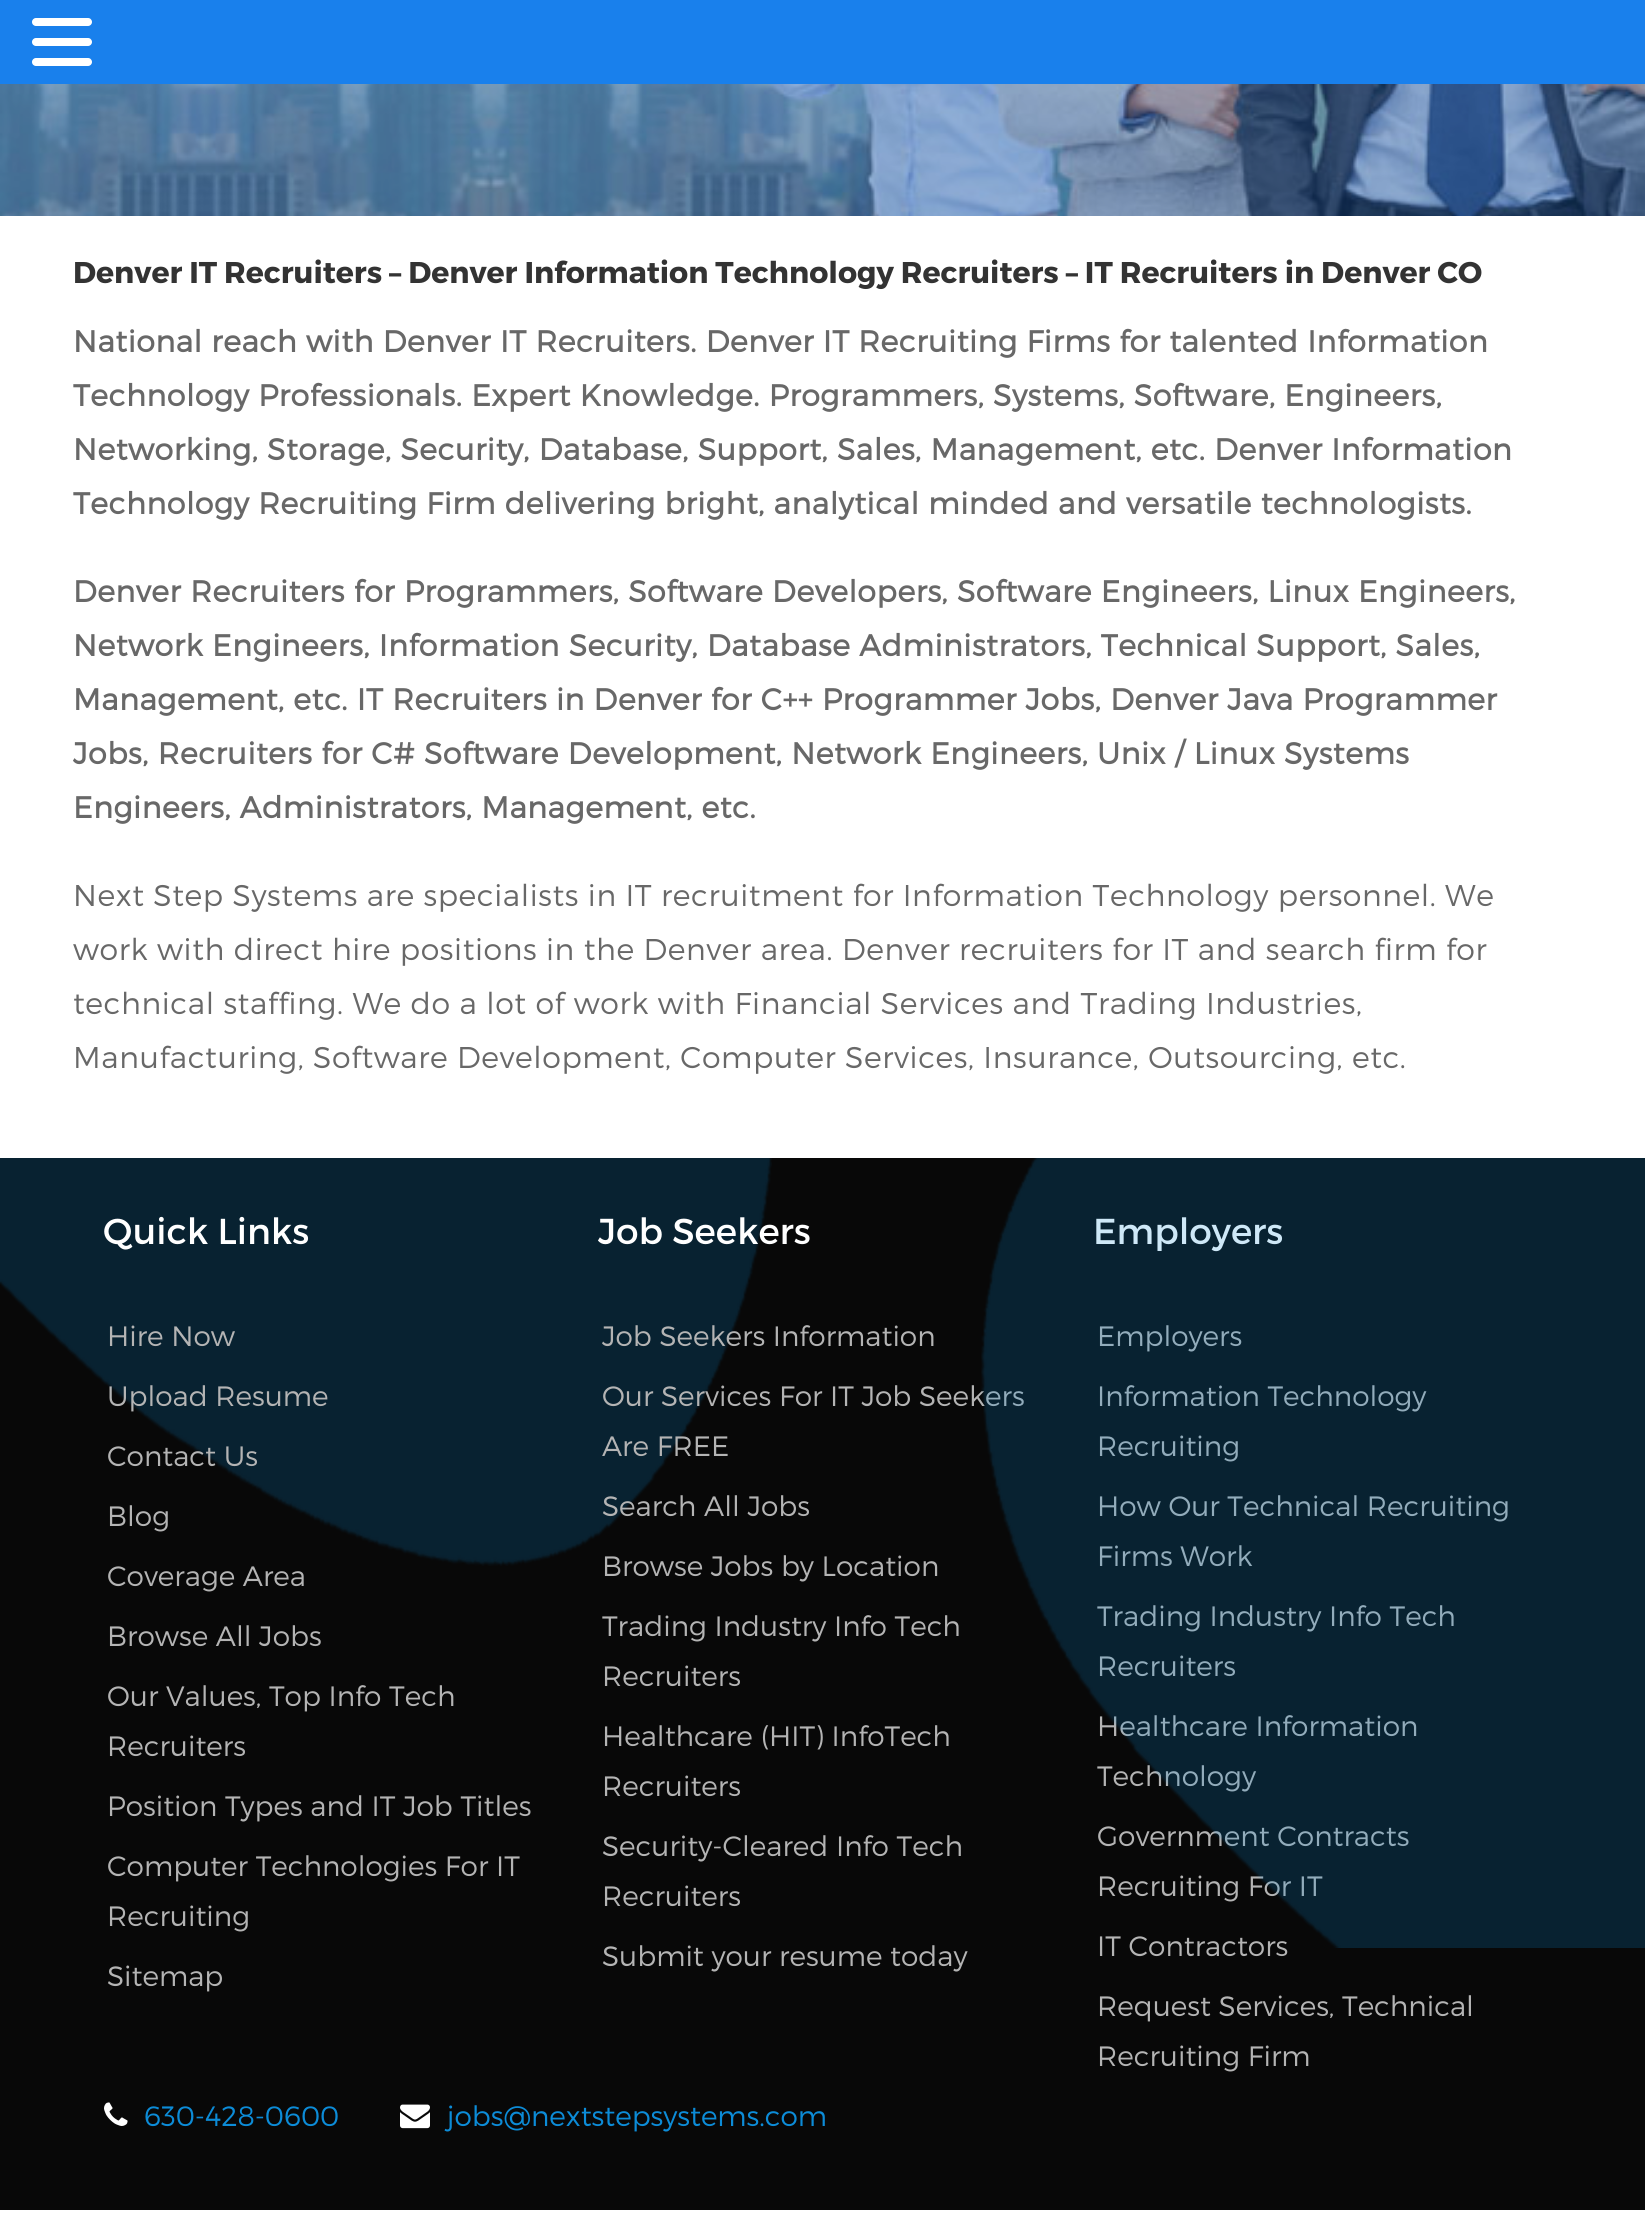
#include <cairo.h>
#include <math.h>
#include <stddef.h>


static void set_color(cairo_t *cr, unsigned color) {
    cairo_set_source_rgb(cr, (color >> 16) / 255.0, (color >> 8 & 255) / 255.0, (color & 255) / 255.0);
}

static void draw_text(cairo_t *cr, double x, double y, const char *s, const char *family, double size, int italic, int bold, unsigned color) {
    cairo_select_font_face(cr, family, italic ? CAIRO_FONT_SLANT_ITALIC : CAIRO_FONT_SLANT_NORMAL,
        bold ? CAIRO_FONT_WEIGHT_BOLD : CAIRO_FONT_WEIGHT_NORMAL);
    cairo_set_font_size(cr, size);
    set_color(cr, color);
    cairo_move_to(cr, x, y);
    cairo_show_text(cr, s);
}

static void draw_spaced(cairo_t *cr, double x, double y, const char *s, double letter, double word) {
    cairo_move_to(cr, x, y);
    while (*s) {
        char ch[5] = {0};
        int n = 0;
        do ch[n++] = *s++; while ((*s & 0xC0) == 0x80);
        cairo_show_text(cr, ch);
        cairo_rel_move_to(cr, letter + word * (*ch == ' '), 0);
    }
}

static void fill_rect(cairo_t *cr, double x, double y, double w, double h, unsigned color) {
    set_color(cr, color);
    cairo_rectangle(cr, x, y, w, h);
    cairo_fill(cr);
}

static void rounded_rect(cairo_t *cr, double x, double y, double w, double h, double r) {
    cairo_new_sub_path(cr);
    cairo_arc(cr, x + w - r, y + h - r, r, 0, M_PI / 2);
    cairo_arc(cr, x + r, y + h - r, r, M_PI / 2, M_PI);
    cairo_arc(cr, x + r, y + r, r, M_PI, 1.5 * M_PI);
    cairo_arc(cr, x + w - r, y + r, r, 1.5 * M_PI, 2 * M_PI);
    cairo_close_path(cr);
}

static void draw_image(cairo_t *cr, const char *path, double x, double y, double w, double h) {
    cairo_surface_t *image = cairo_image_surface_create_from_png(path);
    cairo_save(cr);
    cairo_set_source_surface(cr, image, x, y);
    cairo_rectangle(cr, x, y, w, h);
    cairo_fill(cr);
    cairo_restore(cr);
    cairo_surface_destroy(image);
}

int main(void) {
    cairo_surface_t *surface = cairo_image_surface_create(CAIRO_FORMAT_RGB24, 1645, 2223);
    cairo_t *cr = cairo_create(surface);
    cairo_font_options_t *options = cairo_font_options_create();
    cairo_font_options_set_hint_metrics(options, CAIRO_HINT_METRICS_OFF);
    cairo_font_options_set_hint_style(options, CAIRO_HINT_STYLE_NONE);
    cairo_set_font_options(cr, options);
    cairo_set_miter_limit(cr, 4);
    set_color(cr, 0xFFFFFF);
    cairo_paint(cr);
    fill_rect(cr, 0, 0, 1645, 84, 0x1980EC);
    set_color(cr, 0xFFFFFF);
    rounded_rect(cr, 32, 38, 60, 8, 4);
    cairo_fill(cr);
    rounded_rect(cr, 32, 18, 60, 8, 4);
    cairo_fill(cr);
    rounded_rect(cr, 32, 58, 60, 8, 4);
    cairo_fill(cr);
    draw_image(cr, "assets/img1.png", 0, 84, 1645, 132);
    draw_text(cr, 73, 283, "Denver IT Recruiters – Denver Information Technology Recruiters – IT Recruiters in Denver CO", "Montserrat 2", 30, 0, 1, 0x333333);
    cairo_select_font_face(cr, "Montserrat", CAIRO_FONT_SLANT_NORMAL, CAIRO_FONT_WEIGHT_BOLD);
    set_color(cr, 0x686868);
    draw_spaced(cr, 73, 352, "National reach with Denver IT Recruiters. Denver IT Recruiting Firms for talented Information", 0.6, 0);
    draw_spaced(cr, 73, 406, "Technology Professionals. Expert Knowledge. Programmers, Systems, Software, Engineers,", 0.6, 0);
    draw_spaced(cr, 73, 460, "Networking, Storage, Security, Database, Support, Sales, Management, etc. Denver Information", 0.6, 0);
    draw_spaced(cr, 73, 514, "Technology Recruiting Firm delivering bright, analytical minded and versatile technologists.", 0.6, 0);
    draw_spaced(cr, 73, 602, "Denver Recruiters for Programmers, Software Developers, Software Engineers, Linux Engineers,", 0.6, 0);
    draw_spaced(cr, 73, 656, "Network Engineers, Information Security, Database Administrators, Technical Support, Sales,", 0.6, 0);
    draw_spaced(cr, 73, 710, "Management, etc. IT Recruiters in Denver for C++ Programmer Jobs, Denver Java Programmer", 0.6, 0);
    draw_spaced(cr, 73, 764, "Jobs, Recruiters for C# Software Development, Network Engineers, Unix / Linux Systems", 0.6, 0);
    draw_spaced(cr, 73, 818, "Engineers, Administrators, Management, etc.", 0.6, 0);
    cairo_select_font_face(cr, "Montserrat Light", CAIRO_FONT_SLANT_NORMAL, CAIRO_FONT_WEIGHT_NORMAL);
    draw_spaced(cr, 73, 906, "Next Step Systems are specialists in IT recruitment for Information Technology personnel. We", 0.6, 0);
    draw_spaced(cr, 73, 960, "work with direct hire positions in the Denver area. Denver recruiters for IT and search firm for", 0.6, 0);
    draw_spaced(cr, 73, 1014, "technical staffing. We do a lot of work with Financial Services and Trading Industries,", 0.6, 0);
    draw_spaced(cr, 73, 1068, "Manufacturing, Software Development, Computer Services, Insurance, Outsourcing, etc.", 0.6, 0);
    fill_rect(cr, 0, 1158, 1645, 1052, 0x080808);
    draw_image(cr, "assets/img2.png", 0, 1158, 772, 408);
    draw_text(cr, 602, 1406, "Our Services For IT Job Seekers", "Montserrat Light", 28, 0, 0, 0xB4B4B4);
    draw_text(cr, 1093, 1244, "Employers", "Montserrat", 36, 0, 0, 0xFFFFFF);
    draw_text(cr, 1097, 1346, "Employers", "Montserrat Light", 28, 0, 0, 0xB4B4B4);
    draw_text(cr, 1097, 1406, "Information Technology", "Montserrat Light", 28, 0, 0, 0xB4B4B4);
    draw_text(cr, 1097, 1456, "Recruiting", "Montserrat Light", 28, 0, 0, 0xB4B4B4);
    draw_text(cr, 1097, 1516, "How Our Technical Recruiting", "Montserrat Light", 28, 0, 0, 0xB4B4B4);
    draw_text(cr, 1097, 1566, "Firms Work", "Montserrat Light", 28, 0, 0, 0xB4B4B4);
    draw_text(cr, 1097, 1626, "Trading Industry Info Tech", "Montserrat Light", 28, 0, 0, 0xB4B4B4);
    draw_text(cr, 1097, 1676, "Recruiters", "Montserrat Light", 28, 0, 0, 0xB4B4B4);
    draw_text(cr, 1097, 1736, "Healthcare Information", "Montserrat Light", 28, 0, 0, 0xB4B4B4);
    draw_text(cr, 1097, 1786, "Technology", "Montserrat Light", 28, 0, 0, 0xB4B4B4);
    draw_text(cr, 1097, 1846, "Government Contracts", "Montserrat Light", 28, 0, 0, 0xB4B4B4);
    draw_text(cr, 1097, 1896, "Recruiting For IT", "Montserrat Light", 28, 0, 0, 0xB4B4B4);
    draw_text(cr, 1097, 1956, "IT Contractors", "Montserrat Light", 28, 0, 0, 0xB4B4B4);
    draw_image(cr, "assets/img3.png", 981, 1158, 664, 790);
    draw_text(cr, 103, 1244, "Quick Links", "Montserrat", 36, 0, 0, 0xFFFFFF);
    draw_text(cr, 107, 1346, "Hire Now", "Montserrat Light", 28, 0, 0, 0xB4B4B4);
    draw_text(cr, 107, 1406, "Upload Resume", "Montserrat Light", 28, 0, 0, 0xB4B4B4);
    draw_text(cr, 107, 1466, "Contact Us", "Montserrat Light", 28, 0, 0, 0xB4B4B4);
    draw_text(cr, 107, 1526, "Blog", "Montserrat Light", 28, 0, 0, 0xB4B4B4);
    draw_text(cr, 107, 1586, "Coverage Area", "Montserrat Light", 28, 0, 0, 0xB4B4B4);
    draw_text(cr, 107, 1646, "Browse All Jobs", "Montserrat Light", 28, 0, 0, 0xB4B4B4);
    draw_text(cr, 107, 1706, "Our Values, Top Info Tech", "Montserrat Light", 28, 0, 0, 0xB4B4B4);
    draw_text(cr, 107, 1756, "Recruiters", "Montserrat Light", 28, 0, 0, 0xB4B4B4);
    draw_text(cr, 107, 1816, "Position Types and IT Job Titles", "Montserrat Light", 28, 0, 0, 0xB4B4B4);
    draw_text(cr, 107, 1876, "Computer Technologies For IT", "Montserrat Light", 28, 0, 0, 0xB4B4B4);
    draw_text(cr, 107, 1926, "Recruiting", "Montserrat Light", 28, 0, 0, 0xB4B4B4);
    draw_text(cr, 107, 1986, "Sitemap", "Montserrat Light", 28, 0, 0, 0xB4B4B4);
    draw_text(cr, 598, 1244, "Job Seekers", "Montserrat", 36, 0, 0, 0xFFFFFF);
    draw_text(cr, 602, 1346, "Job Seekers Information", "Montserrat Light", 28, 0, 0, 0xB4B4B4);
    draw_text(cr, 602, 1456, "Are FREE", "Montserrat Light", 28, 0, 0, 0xB4B4B4);
    draw_text(cr, 602, 1516, "Search All Jobs", "Montserrat Light", 28, 0, 0, 0xB4B4B4);
    draw_text(cr, 602, 1576, "Browse Jobs by Location", "Montserrat Light", 28, 0, 0, 0xB4B4B4);
    draw_text(cr, 602, 1636, "Trading Industry Info Tech", "Montserrat Light", 28, 0, 0, 0xB4B4B4);
    draw_text(cr, 602, 1686, "Recruiters", "Montserrat Light", 28, 0, 0, 0xB4B4B4);
    draw_text(cr, 602, 1746, "Healthcare (HIT) InfoTech", "Montserrat Light", 28, 0, 0, 0xB4B4B4);
    draw_text(cr, 602, 1796, "Recruiters", "Montserrat Light", 28, 0, 0, 0xB4B4B4);
    draw_text(cr, 602, 1856, "Security-Cleared Info Tech", "Montserrat Light", 28, 0, 0, 0xB4B4B4);
    draw_text(cr, 602, 1906, "Recruiters", "Montserrat Light", 28, 0, 0, 0xB4B4B4);
    draw_text(cr, 602, 1966, "Submit your resume today", "Montserrat Light", 28, 0, 0, 0xB4B4B4);
    draw_text(cr, 1097, 2016, "Request Services, Technical", "Montserrat Light", 28, 0, 0, 0xB4B4B4);
    draw_text(cr, 1097, 2066, "Recruiting Firm", "Montserrat Light", 28, 0, 0, 0xB4B4B4);
    draw_image(cr, "assets/img4.png", 104, 2102, 24, 24);
    draw_text(cr, 144, 2126, "630-428-0600", "Montserrat Light", 28, 0, 0, 0x0C8CD8);
    draw_image(cr, "assets/img5.png", 400, 2104, 30, 25);
    draw_text(cr, 447, 2126, "jobs@nextstepsystems.com", "Montserrat Light", 28, 0, 0, 0x0C8CD8);
    cairo_surface_write_to_png(surface, "output.png");
    cairo_font_options_destroy(options);
    cairo_destroy(cr);
    cairo_surface_destroy(surface);
    return 0;
}
